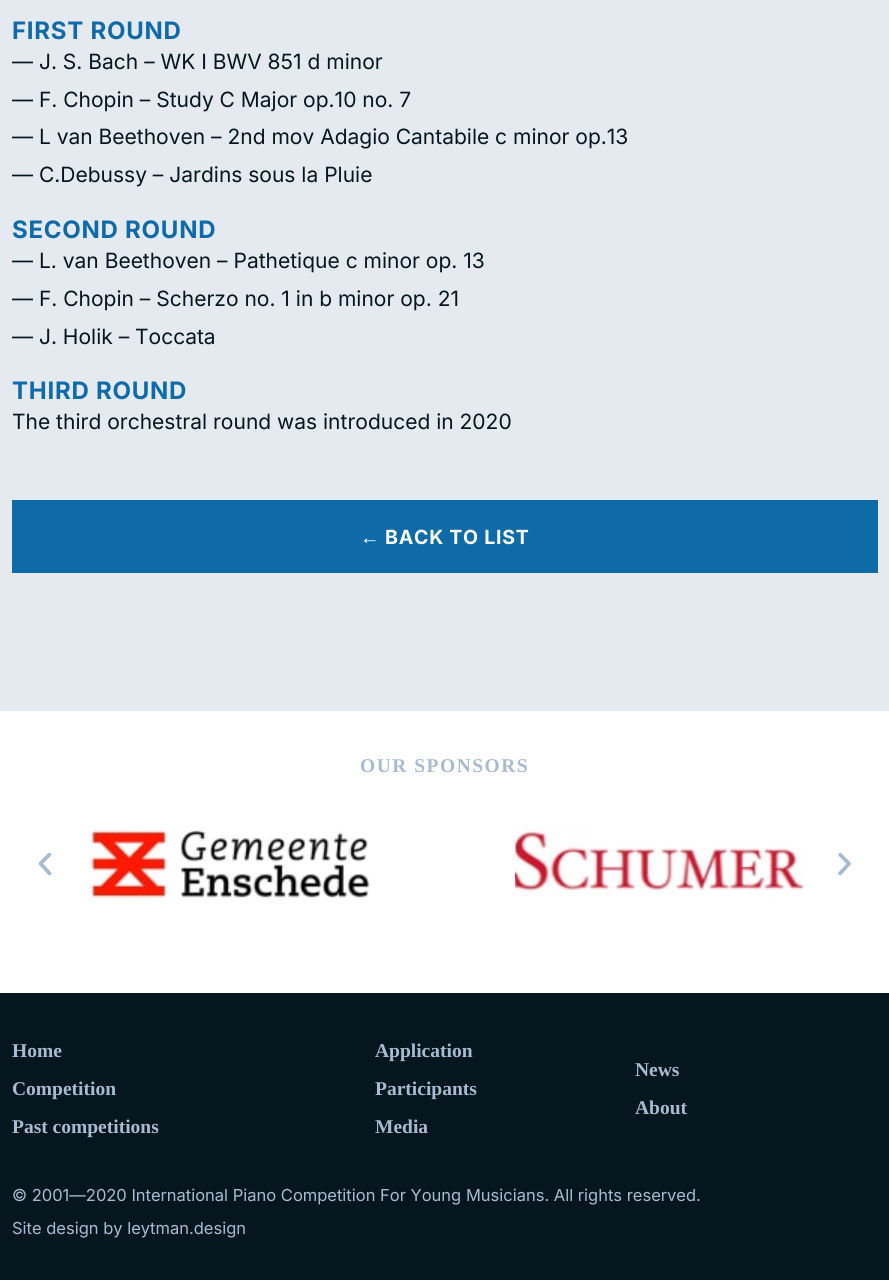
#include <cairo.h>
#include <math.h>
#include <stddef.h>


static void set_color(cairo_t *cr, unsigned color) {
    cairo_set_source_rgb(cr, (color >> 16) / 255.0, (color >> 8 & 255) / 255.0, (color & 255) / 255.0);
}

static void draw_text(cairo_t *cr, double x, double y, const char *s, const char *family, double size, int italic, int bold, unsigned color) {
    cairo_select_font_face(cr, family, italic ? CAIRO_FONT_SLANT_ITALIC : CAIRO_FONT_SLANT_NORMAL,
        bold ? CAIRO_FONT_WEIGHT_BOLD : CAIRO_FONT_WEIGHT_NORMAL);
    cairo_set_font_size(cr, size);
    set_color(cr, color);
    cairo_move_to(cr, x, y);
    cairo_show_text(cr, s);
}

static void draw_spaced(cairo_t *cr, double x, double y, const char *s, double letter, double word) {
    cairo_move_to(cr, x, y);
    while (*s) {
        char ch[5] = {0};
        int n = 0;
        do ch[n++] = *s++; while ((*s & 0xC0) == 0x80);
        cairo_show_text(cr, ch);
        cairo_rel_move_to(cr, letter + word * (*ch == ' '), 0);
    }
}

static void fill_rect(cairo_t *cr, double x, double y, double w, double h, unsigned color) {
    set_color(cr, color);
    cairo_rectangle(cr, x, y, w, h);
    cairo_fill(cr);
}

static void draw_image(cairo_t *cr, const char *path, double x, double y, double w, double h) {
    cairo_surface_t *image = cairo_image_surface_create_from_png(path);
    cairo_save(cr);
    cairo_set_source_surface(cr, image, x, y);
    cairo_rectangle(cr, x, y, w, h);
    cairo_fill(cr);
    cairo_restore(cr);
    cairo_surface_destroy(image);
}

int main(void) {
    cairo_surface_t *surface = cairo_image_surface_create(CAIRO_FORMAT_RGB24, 889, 1280);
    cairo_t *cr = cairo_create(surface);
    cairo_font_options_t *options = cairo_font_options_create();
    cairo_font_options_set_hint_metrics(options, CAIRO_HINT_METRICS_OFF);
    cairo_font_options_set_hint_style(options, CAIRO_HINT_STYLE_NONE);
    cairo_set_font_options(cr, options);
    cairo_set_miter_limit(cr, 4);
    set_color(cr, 0xE5EAF1);
    cairo_paint(cr);
    cairo_select_font_face(cr, "Inter", CAIRO_FONT_SLANT_NORMAL, CAIRO_FONT_WEIGHT_BOLD);
    cairo_set_font_size(cr, 24);
    set_color(cr, 0x0E6BA8);
    draw_spaced(cr, 12, 39, "FIRST ROUND", 0.75, 0);
    draw_text(cr, 12, 69, "— J. S. Bach – WK I BWV 851 d minor", "Inter", 21, 0, 0, 0x06161E);
    draw_text(cr, 12, 107, "— F. Chopin – Study C Major op.10 no. 7", "Inter", 21, 0, 0, 0x06161E);
    draw_text(cr, 12, 144, "— L van Beethoven – 2nd mov Adagio Cantabile c minor op.13", "Inter", 21, 0, 0, 0x06161E);
    draw_text(cr, 12, 182, "— C.Debussy – Jardins sous la Pluie", "Inter", 21, 0, 0, 0x06161E);
    cairo_select_font_face(cr, "Inter", CAIRO_FONT_SLANT_NORMAL, CAIRO_FONT_WEIGHT_BOLD);
    cairo_set_font_size(cr, 24);
    set_color(cr, 0x0E6BA8);
    draw_spaced(cr, 12, 238, "SECOND ROUND", 0.75, 0);
    draw_text(cr, 12, 268, "— L. van Beethoven – Pathetique c minor op. 13", "Inter", 21, 0, 0, 0x06161E);
    draw_text(cr, 12, 306, "— F. Chopin – Scherzo no. 1 in b minor op. 21", "Inter", 21, 0, 0, 0x06161E);
    draw_text(cr, 12, 344, "— J. Holik – Toccata", "Inter", 21, 0, 0, 0x06161E);
    cairo_select_font_face(cr, "Inter", CAIRO_FONT_SLANT_NORMAL, CAIRO_FONT_WEIGHT_BOLD);
    cairo_set_font_size(cr, 24);
    set_color(cr, 0x0E6BA8);
    draw_spaced(cr, 12, 399, "THIRD ROUND", 0.75, 0);
    draw_text(cr, 12, 429, "The third orchestral round was introduced in 2020", "Inter", 21, 0, 0, 0x06161E);
    fill_rect(cr, 12, 500, 866, 73, 0x0E6BA8);
    cairo_select_font_face(cr, "Liberation Sans", CAIRO_FONT_SLANT_NORMAL, CAIRO_FONT_WEIGHT_BOLD);
    cairo_set_font_size(cr, 19.5);
    set_color(cr, 0xFFFFFF);
    draw_spaced(cr, 360, 544, "←", 0.75, 0);
    cairo_select_font_face(cr, "Inter", CAIRO_FONT_SLANT_NORMAL, CAIRO_FONT_WEIGHT_BOLD);
    draw_spaced(cr, 385, 544, "BACK TO LIST", 0.75, 0);
    fill_rect(cr, 0, 711, 889, 282, 0xFFFFFF);
    cairo_select_font_face(cr, "Liberation Serif", CAIRO_FONT_SLANT_NORMAL, CAIRO_FONT_WEIGHT_BOLD);
    set_color(cr, 0xA9BBD1);
    draw_spaced(cr, 360, 772, "OUR SPONSORS", 1.5, 0);
    draw_image(cr, "assets/img1.png", 38, 852, 14, 24);
    draw_image(cr, "assets/img2.png", 86, 825, 284, 74);
    draw_image(cr, "assets/img3.png", 515, 825, 289, 72);
    draw_image(cr, "assets/img4.png", 838, 852, 13, 24);
    fill_rect(cr, 0, 993, 889, 287, 0x06161E);
    draw_text(cr, 12, 1057, "Home", "Liberation Serif", 19.5, 0, 1, 0xA9BBD1);
    draw_text(cr, 12, 1095, "Competition", "Liberation Serif", 19.5, 0, 1, 0xA9BBD1);
    draw_text(cr, 12, 1133, "Past competitions", "Liberation Serif", 19.5, 0, 1, 0xA9BBD1);
    draw_text(cr, 375, 1057, "Application", "Liberation Serif", 19.5, 0, 1, 0xA9BBD1);
    draw_text(cr, 375, 1095, "Participants", "Liberation Serif", 19.5, 0, 1, 0xA9BBD1);
    draw_text(cr, 375, 1133, "Media", "Liberation Serif", 19.5, 0, 1, 0xA9BBD1);
    draw_text(cr, 635, 1076, "News", "Liberation Serif", 19.5, 0, 1, 0xA9BBD1);
    draw_text(cr, 635, 1114, "About", "Liberation Serif", 19.5, 0, 1, 0xA9BBD1);
    draw_text(cr, 12, 1201, "© 2001—2020 International Piano Competition For Young Musicians. All rights reserved.", "Inter", 16.5, 0, 0, 0xA9BBD1);
    draw_text(cr, 12, 1234, "Site design by leytman.design", "Inter", 16.5, 0, 0, 0xA9BBD1);
    cairo_surface_write_to_png(surface, "output.png");
    cairo_font_options_destroy(options);
    cairo_destroy(cr);
    cairo_surface_destroy(surface);
    return 0;
}
